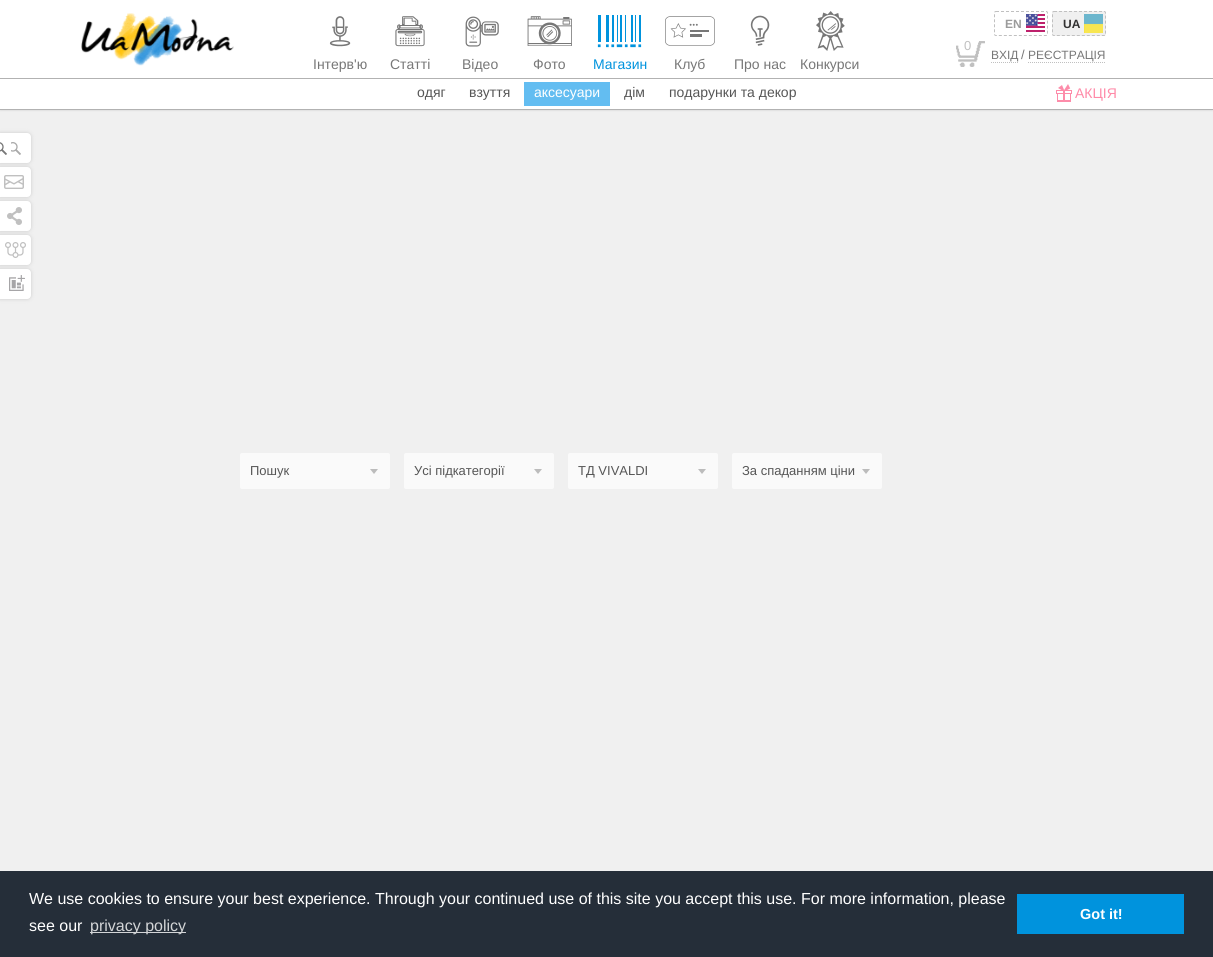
#include <cairo.h>
#include <math.h>
#include <stddef.h>


static void set_color(cairo_t *cr, unsigned color) {
    cairo_set_source_rgb(cr, (color >> 16) / 255.0, (color >> 8 & 255) / 255.0, (color & 255) / 255.0);
}

static void draw_text(cairo_t *cr, double x, double y, const char *s, const char *family, double size, int italic, int bold, unsigned color) {
    cairo_select_font_face(cr, family, italic ? CAIRO_FONT_SLANT_ITALIC : CAIRO_FONT_SLANT_NORMAL,
        bold ? CAIRO_FONT_WEIGHT_BOLD : CAIRO_FONT_WEIGHT_NORMAL);
    cairo_set_font_size(cr, size);
    set_color(cr, color);
    cairo_move_to(cr, x, y);
    cairo_show_text(cr, s);
}

static void fill_rect(cairo_t *cr, double x, double y, double w, double h, unsigned color) {
    set_color(cr, color);
    cairo_rectangle(cr, x, y, w, h);
    cairo_fill(cr);
}

static void rounded_rect(cairo_t *cr, double x, double y, double w, double h, double r) {
    cairo_new_sub_path(cr);
    cairo_arc(cr, x + w - r, y + h - r, r, 0, M_PI / 2);
    cairo_arc(cr, x + r, y + h - r, r, M_PI / 2, M_PI);
    cairo_arc(cr, x + r, y + r, r, M_PI, 1.5 * M_PI);
    cairo_arc(cr, x + w - r, y + r, r, 1.5 * M_PI, 2 * M_PI);
    cairo_close_path(cr);
}

static void draw_shadow(cairo_t *cr, double x, double y, double w, double h, double r, double blur, double alpha) {
    cairo_push_group_with_content(cr, CAIRO_CONTENT_ALPHA);
    cairo_set_operator(cr, CAIRO_OPERATOR_SOURCE);
    for (int i = 15; i >= -15 && fmin(w, h) + blur * i / 3 > 0; i -= 2) {
        double e = blur * i / 6;
        cairo_set_source_rgba(cr, 0, 0, 0, alpha * erfc((i - 1) / 8.5) / 2);
        rounded_rect(cr, x - e, y - e, w + 2 * e, h + 2 * e, fmax(0, fmin(r + e + blur * .6, fmin(w, h) / 2 + e)));
        cairo_fill(cr);
    }
    cairo_pattern_t *soft = cairo_pop_group(cr);
    cairo_mask(cr, soft);
    cairo_pattern_destroy(soft);
}

static void draw_image(cairo_t *cr, const char *path, double x, double y, double w, double h) {
    cairo_surface_t *image = cairo_image_surface_create_from_png(path);
    cairo_save(cr);
    cairo_set_source_surface(cr, image, x, y);
    cairo_rectangle(cr, x, y, w, h);
    cairo_fill(cr);
    cairo_restore(cr);
    cairo_surface_destroy(image);
}

int main(void) {
    cairo_surface_t *surface = cairo_image_surface_create(CAIRO_FORMAT_RGB24, 1213, 957);
    cairo_t *cr = cairo_create(surface);
    cairo_font_options_t *options = cairo_font_options_create();
    cairo_font_options_set_hint_metrics(options, CAIRO_HINT_METRICS_OFF);
    cairo_font_options_set_hint_style(options, CAIRO_HINT_STYLE_NONE);
    cairo_set_font_options(cr, options);
    cairo_set_miter_limit(cr, 4);
    set_color(cr, 0xF0F0F0);
    cairo_paint(cr);
    set_color(cr, 0xCCCCCC);
    draw_shadow(cr, 0, 79, 1213, 31, 0, 1, 1);
    fill_rect(cr, 0, 0, 1213, 78, 0xFFFFFF);
    fill_rect(cr, 0, 78, 1213, 1, 0xB2B2B2);
    draw_image(cr, "assets/img1.png", 81, 13, 153, 53);
    cairo_new_path(cr);
    cairo_move_to(cr, 996, 11.5);
    cairo_line_to(cr, 1046, 11.5);
    cairo_curve_to(cr, 1047, 11.5, 1047.5, 12, 1047.5, 13);
    cairo_line_to(cr, 1047.5, 34);
    cairo_curve_to(cr, 1047.5, 35, 1047, 35.5, 1046, 35.5);
    cairo_line_to(cr, 996, 35.5);
    cairo_curve_to(cr, 995, 35.5, 994.5, 35, 994.5, 34);
    cairo_line_to(cr, 994.5, 13);
    cairo_curve_to(cr, 994.5, 12, 995, 11.5, 996, 11.5);
    cairo_close_path(cr);
    set_color(cr, 0xC0C0C0);
    cairo_set_line_width(cr, 1);
    cairo_set_dash(cr, (double[]){3, 2}, 2, 0);
    cairo_stroke(cr);
    draw_text(cr, 1005, 28, "EN", "Liberation Sans", 12, 0, 1, 0x9B9B9B);
    draw_image(cr, "assets/img2.png", 1026, 14, 19, 18);
    set_color(cr, 0xF0F0F0);
    rounded_rect(cr, 1052, 11, 54, 25, 2);
    cairo_fill(cr);
    cairo_new_path(cr);
    cairo_move_to(cr, 1054, 11.5);
    cairo_line_to(cr, 1104, 11.5);
    cairo_curve_to(cr, 1105, 11.5, 1105.5, 12, 1105.5, 13);
    cairo_line_to(cr, 1105.5, 34);
    cairo_curve_to(cr, 1105.5, 35, 1105, 35.5, 1104, 35.5);
    cairo_line_to(cr, 1054, 35.5);
    cairo_curve_to(cr, 1053, 35.5, 1052.5, 35, 1052.5, 34);
    cairo_line_to(cr, 1052.5, 13);
    cairo_curve_to(cr, 1052.5, 12, 1053, 11.5, 1054, 11.5);
    cairo_close_path(cr);
    set_color(cr, 0xC0C0C0);
    cairo_stroke(cr);
    draw_text(cr, 1063, 28, "UA", "Liberation Sans", 12, 0, 1, 0x333232);
    draw_image(cr, "assets/img3.png", 1084, 14, 19, 19);
    draw_image(cr, "assets/img4.png", 956, 41, 29, 26);
    draw_text(cr, 964, 50, "0", "Liberation Sans", 13, 0, 0, 0xC0C0C0);
    draw_text(cr, 991, 59, "ВХІД", "Liberation Sans", 12, 0, 0, 0x777777);
    cairo_new_path(cr);
    cairo_move_to(cr, 991, 62.5);
    cairo_line_to(cr, 1018, 62.5);
    set_color(cr, 0xC0C0C0);
    cairo_set_dash(cr, (double[]){1, 1}, 2, 0);
    cairo_stroke(cr);
    draw_text(cr, 1021, 59, "/", "Liberation Sans", 13, 0, 0, 0x777777);
    draw_text(cr, 1028, 59, "РЕЄСТРАЦІЯ", "Liberation Sans", 12, 0, 0, 0x777777);
    cairo_new_path(cr);
    cairo_move_to(cr, 1028, 62.5);
    cairo_line_to(cr, 1106, 62.5);
    set_color(cr, 0xC0C0C0);
    cairo_stroke(cr);
    draw_image(cr, "assets/img5.png", 329, 16, 22, 31);
    draw_text(cr, 313, 69, "Інтерв'ю", "Liberation Sans", 14, 0, 0, 0x777777);
    draw_image(cr, "assets/img6.png", 395, 16, 30, 31);
    draw_text(cr, 390, 69, "Статті", "Liberation Sans", 14, 0, 0, 0x777777);
    draw_image(cr, "assets/img7.png", 465, 16, 34, 31);
    draw_text(cr, 462, 69, "Відео", "Liberation Sans", 14, 0, 0, 0x777777);
    draw_image(cr, "assets/img8.png", 527, 16, 45, 30);
    draw_text(cr, 533, 69, "Фото", "Liberation Sans", 14, 0, 0, 0x777777);
    draw_image(cr, "assets/img9.png", 597, 15, 45, 33);
    draw_text(cr, 593, 69, "Магазин", "Liberation Sans", 14, 0, 0, 0x0093DD);
    draw_image(cr, "assets/img10.png", 665, 16, 50, 30);
    draw_text(cr, 674, 69, "Клуб", "Liberation Sans", 14, 0, 0, 0x777777);
    draw_image(cr, "assets/img11.png", 750, 15, 20, 31);
    draw_text(cr, 734, 69, "Про нас", "Liberation Sans", 14, 0, 0, 0x777777);
    draw_image(cr, "assets/img12.png", 816, 11, 29, 40);
    draw_text(cr, 800, 69, "Конкурси", "Liberation Sans", 14, 0, 0, 0x777777);
    fill_rect(cr, 0, 79, 1213, 30, 0xFFFFFF);
    fill_rect(cr, 0, 109, 1213, 1, 0xB2B2B2);
    draw_text(cr, 417, 97, "одяг", "Liberation Sans", 14, 0, 0, 0x565656);
    draw_text(cr, 469, 97, "взуття", "Liberation Sans", 14, 0, 0, 0x565656);
    fill_rect(cr, 524, 82, 86, 24, 0x63BDF1);
    draw_text(cr, 534, 97, "аксесуари", "Liberation Sans", 14, 0, 0, 0xFFFFFF);
    draw_text(cr, 624, 97, "дім", "Liberation Sans", 14, 0, 0, 0x565656);
    draw_text(cr, 669, 97, "подарунки та декор", "Liberation Sans", 14, 0, 0, 0x565656);
    draw_image(cr, "assets/img13.png", 1056, 84, 16, 18);
    draw_text(cr, 1075, 98, "АКЦІЯ", "Liberation Sans", 14, 0, 0, 0xFF8AA8);
    set_color(cr, 0xCCCCCC);
    draw_shadow(cr, -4, 133, 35, 30, 4, 2, 1);
    set_color(cr, 0xFFFFFF);
    rounded_rect(cr, -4, 133, 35, 30, 4);
    cairo_fill(cr);
    draw_image(cr, "assets/img14.png", 11, 142, 10, 13);
    set_color(cr, 0xCCCCCC);
    draw_shadow(cr, -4, 167, 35, 30, 4, 2, 1);
    set_color(cr, 0xFFFFFF);
    rounded_rect(cr, -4, 167, 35, 30, 4);
    cairo_fill(cr);
    draw_image(cr, "assets/img15.png", 4, 175, 20, 14);
    set_color(cr, 0xCCCCCC);
    draw_shadow(cr, -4, 201, 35, 30, 4, 2, 1);
    set_color(cr, 0xFFFFFF);
    rounded_rect(cr, -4, 201, 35, 30, 4);
    cairo_fill(cr);
    draw_image(cr, "assets/img16.png", 7, 207, 15, 18);
    set_color(cr, 0xCCCCCC);
    draw_shadow(cr, -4, 235, 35, 30, 4, 2, 1);
    set_color(cr, 0xFFFFFF);
    rounded_rect(cr, -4, 235, 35, 30, 4);
    cairo_fill(cr);
    draw_image(cr, "assets/img17.png", 5, 242, 21, 16);
    set_color(cr, 0xCCCCCC);
    draw_shadow(cr, -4, 269, 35, 30, 4, 2, 1);
    set_color(cr, 0xFFFFFF);
    rounded_rect(cr, -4, 269, 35, 30, 4);
    cairo_fill(cr);
    draw_image(cr, "assets/img18.png", 9, 275, 16, 16);
    draw_image(cr, "assets/img19.png", 0, 142, 7, 13);
    set_color(cr, 0xFAFAFA);
    rounded_rect(cr, 240, 453, 150, 36, 2);
    cairo_fill(cr);
    draw_text(cr, 250, 475, "Пошук", "Liberation Sans", 13, 0, 0, 0x565656);
    set_color(cr, 0xBCBCBC);
    cairo_new_path(cr);
    cairo_move_to(cr, 370, 469);
    cairo_line_to(cr, 378, 469);
    cairo_line_to(cr, 374, 474);
    cairo_close_path(cr);
    cairo_fill(cr);
    set_color(cr, 0xFAFAFA);
    rounded_rect(cr, 404, 453, 150, 36, 2);
    cairo_fill(cr);
    draw_text(cr, 414, 475, "Усі підкатегорії", "Liberation Sans", 13, 0, 0, 0x565656);
    set_color(cr, 0xBCBCBC);
    cairo_new_path(cr);
    cairo_move_to(cr, 534, 469);
    cairo_line_to(cr, 542, 469);
    cairo_line_to(cr, 538, 474);
    cairo_close_path(cr);
    cairo_fill(cr);
    set_color(cr, 0xFAFAFA);
    rounded_rect(cr, 568, 453, 150, 36, 2);
    cairo_fill(cr);
    draw_text(cr, 578, 475, "ТД VIVALDI", "Liberation Sans", 13, 0, 0, 0x565656);
    set_color(cr, 0xBCBCBC);
    cairo_new_path(cr);
    cairo_move_to(cr, 698, 469);
    cairo_line_to(cr, 706, 469);
    cairo_line_to(cr, 702, 474);
    cairo_close_path(cr);
    cairo_fill(cr);
    set_color(cr, 0xFAFAFA);
    rounded_rect(cr, 732, 453, 150, 36, 2);
    cairo_fill(cr);
    draw_text(cr, 742, 475, "За спаданням ціни", "Liberation Sans", 13, 0, 0, 0x565656);
    set_color(cr, 0xBCBCBC);
    cairo_new_path(cr);
    cairo_move_to(cr, 862, 469);
    cairo_line_to(cr, 870, 469);
    cairo_line_to(cr, 866, 474);
    cairo_close_path(cr);
    cairo_fill(cr);
    fill_rect(cr, 0, 871, 1213, 86, 0x252E39);
    draw_text(cr, 29, 904, "We use cookies to ensure your best experience. Through your continued use of this site you accept this use. For more information, please", "Liberation Sans", 16, 0, 0, 0xFFFFFF);
    draw_text(cr, 29, 931, "see our", "Liberation Sans", 16, 0, 0, 0xFFFFFF);
    fill_rect(cr, 90, 932, 96, 1, 0xD3D5D7);
    draw_text(cr, 90, 931, "privacy policy", "Liberation Sans", 16, 0, 0, 0xD3D5D7);
    fill_rect(cr, 1017, 894, 167, 40, 0x0093DD);
    draw_text(cr, 1080, 919, "Got it!", "Liberation Sans", 14.5, 0, 1, 0xFFFFFF);
    cairo_surface_write_to_png(surface, "output.png");
    cairo_font_options_destroy(options);
    cairo_destroy(cr);
    cairo_surface_destroy(surface);
    return 0;
}
